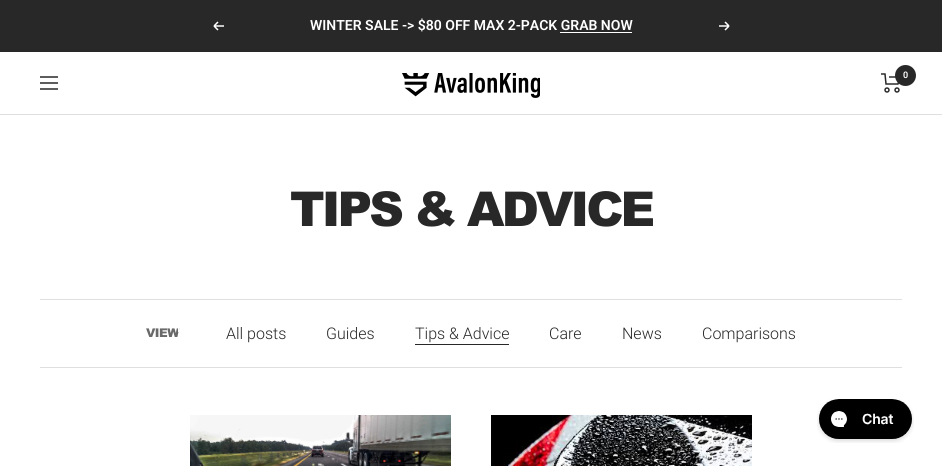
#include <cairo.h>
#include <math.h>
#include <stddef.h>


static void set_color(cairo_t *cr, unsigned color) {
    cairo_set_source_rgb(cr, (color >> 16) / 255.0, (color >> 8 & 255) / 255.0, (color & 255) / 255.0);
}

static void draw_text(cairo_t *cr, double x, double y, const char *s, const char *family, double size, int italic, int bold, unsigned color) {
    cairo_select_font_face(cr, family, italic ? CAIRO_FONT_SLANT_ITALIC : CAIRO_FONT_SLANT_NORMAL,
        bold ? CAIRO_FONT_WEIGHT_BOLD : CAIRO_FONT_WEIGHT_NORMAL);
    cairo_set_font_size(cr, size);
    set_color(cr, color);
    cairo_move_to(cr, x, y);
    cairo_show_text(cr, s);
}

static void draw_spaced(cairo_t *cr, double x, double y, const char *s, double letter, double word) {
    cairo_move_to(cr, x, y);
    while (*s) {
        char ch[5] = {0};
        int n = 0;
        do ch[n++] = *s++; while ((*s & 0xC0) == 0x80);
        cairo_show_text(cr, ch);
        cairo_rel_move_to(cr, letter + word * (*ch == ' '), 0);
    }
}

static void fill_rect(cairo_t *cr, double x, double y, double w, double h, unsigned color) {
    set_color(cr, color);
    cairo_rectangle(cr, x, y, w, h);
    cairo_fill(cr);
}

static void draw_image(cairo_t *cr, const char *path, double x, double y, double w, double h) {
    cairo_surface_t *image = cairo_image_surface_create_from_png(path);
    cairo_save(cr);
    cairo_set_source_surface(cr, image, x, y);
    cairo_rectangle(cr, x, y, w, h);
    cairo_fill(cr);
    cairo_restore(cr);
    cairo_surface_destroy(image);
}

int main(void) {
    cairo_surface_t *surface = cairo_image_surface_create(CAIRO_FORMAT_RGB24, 942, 466);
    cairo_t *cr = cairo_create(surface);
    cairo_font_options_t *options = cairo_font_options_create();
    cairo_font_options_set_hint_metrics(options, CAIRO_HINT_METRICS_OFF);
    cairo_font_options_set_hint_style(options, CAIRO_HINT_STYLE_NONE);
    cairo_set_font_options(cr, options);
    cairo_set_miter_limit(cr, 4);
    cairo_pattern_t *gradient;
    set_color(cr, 0xFFFFFF);
    cairo_paint(cr);
    fill_rect(cr, 0, 0, 942, 52, 0x282828);
    cairo_new_path(cr);
    cairo_move_to(cr, 224, 26);
    cairo_line_to(cr, 214, 26);
    cairo_move_to(cr, 214, 26);
    cairo_line_to(cr, 218, 30);
    cairo_move_to(cr, 214, 26);
    cairo_line_to(cr, 218, 22);
    set_color(cr, 0xFFFFFF);
    cairo_set_line_width(cr, 1.5);
    cairo_stroke(cr);
    draw_text(cr, 310, 30, "WINTER SALE -> $80 OFF MAX 2-PACK GRAB NOW", "Roboto SemiBold", 14, 0, 0, 0xFFFFFF);
    fill_rect(cr, 560, 32, 72, 1, 0xFFFFFF);
    cairo_new_path(cr);
    cairo_move_to(cr, 719, 26);
    cairo_line_to(cr, 729, 26);
    cairo_move_to(cr, 729, 26);
    cairo_line_to(cr, 725, 30);
    cairo_move_to(cr, 729, 26);
    cairo_line_to(cr, 725, 22);
    cairo_stroke(cr);
    fill_rect(cr, 0, 114, 942, 1, 0xDFDFDF);
    cairo_new_path(cr);
    cairo_move_to(cr, 40, 77);
    cairo_line_to(cr, 58, 77);
    cairo_move_to(cr, 40, 89);
    cairo_line_to(cr, 58, 89);
    cairo_close_path(cr);
    cairo_move_to(cr, 40, 83);
    cairo_line_to(cr, 58, 83);
    cairo_close_path(cr);
    set_color(cr, 0x282828);
    cairo_stroke(cr);
    draw_image(cr, "assets/img1.png", 402, 73, 138, 25);
    draw_image(cr, "assets/img2.png", 881, 73, 19, 20);
    cairo_arc(cr, 905.5, 75.5, 10.5, 0, 2 * M_PI);
    cairo_fill(cr);
    draw_text(cr, 903, 78, "0", "Roboto SemiBold", 9, 0, 0, 0xFFFFFF);
    cairo_select_font_face(cr, "Arial Black", CAIRO_FONT_SLANT_NORMAL, CAIRO_FONT_WEIGHT_NORMAL);
    cairo_set_font_size(cr, 48);
    set_color(cr, 0x282828);
    draw_spaced(cr, 290, 226, "TIPS & ADVICE", -2.9, 0);
    fill_rect(cr, 40, 299, 862, 1, 0xDFDFDF);
    fill_rect(cr, 40, 367, 862, 1, 0xDFDFDF);
    cairo_set_font_size(cr, 12);
    set_color(cr, 0x696969);
    draw_spaced(cr, 146, 337, "VIEW", -0.5, 0);
    gradient = cairo_pattern_create_linear(178, 334, 206, 334);
    cairo_pattern_add_color_stop_rgba(gradient, 0.35, 1, 1, 1, 1);
    cairo_pattern_add_color_stop_rgba(gradient, 1, 1, 1, 1, 0);
    cairo_set_source(cr, gradient);
    cairo_pattern_destroy(gradient);
    cairo_rectangle(cr, 178, 328, 1, 4);
    cairo_fill(cr);
    draw_text(cr, 226, 339, "All posts", "Roboto Light", 16, 0, 0, 0x282828);
    draw_text(cr, 326, 339, "Guides", "Roboto Light", 16, 0, 0, 0x282828);
    draw_text(cr, 415, 339, "Tips & Advice", "Roboto Light", 16, 0, 0, 0x282828);
    fill_rect(cr, 415, 344, 94, 1, 0x282828);
    draw_text(cr, 549, 339, "Care", "Roboto Light", 16, 0, 0, 0x282828);
    draw_text(cr, 622, 339, "News", "Roboto Light", 16, 0, 0, 0x282828);
    draw_text(cr, 702, 339, "Comparisons", "Roboto Light", 16, 0, 0, 0x282828);
    draw_image(cr, "assets/img3.png", 190, 415, 261, 51);
    draw_image(cr, "assets/img4.png", 491, 415, 261, 51);
    draw_image(cr, "assets/img5.png", 817, 399, 97, 44);
    cairo_surface_write_to_png(surface, "output.png");
    cairo_font_options_destroy(options);
    cairo_destroy(cr);
    cairo_surface_destroy(surface);
    return 0;
}
